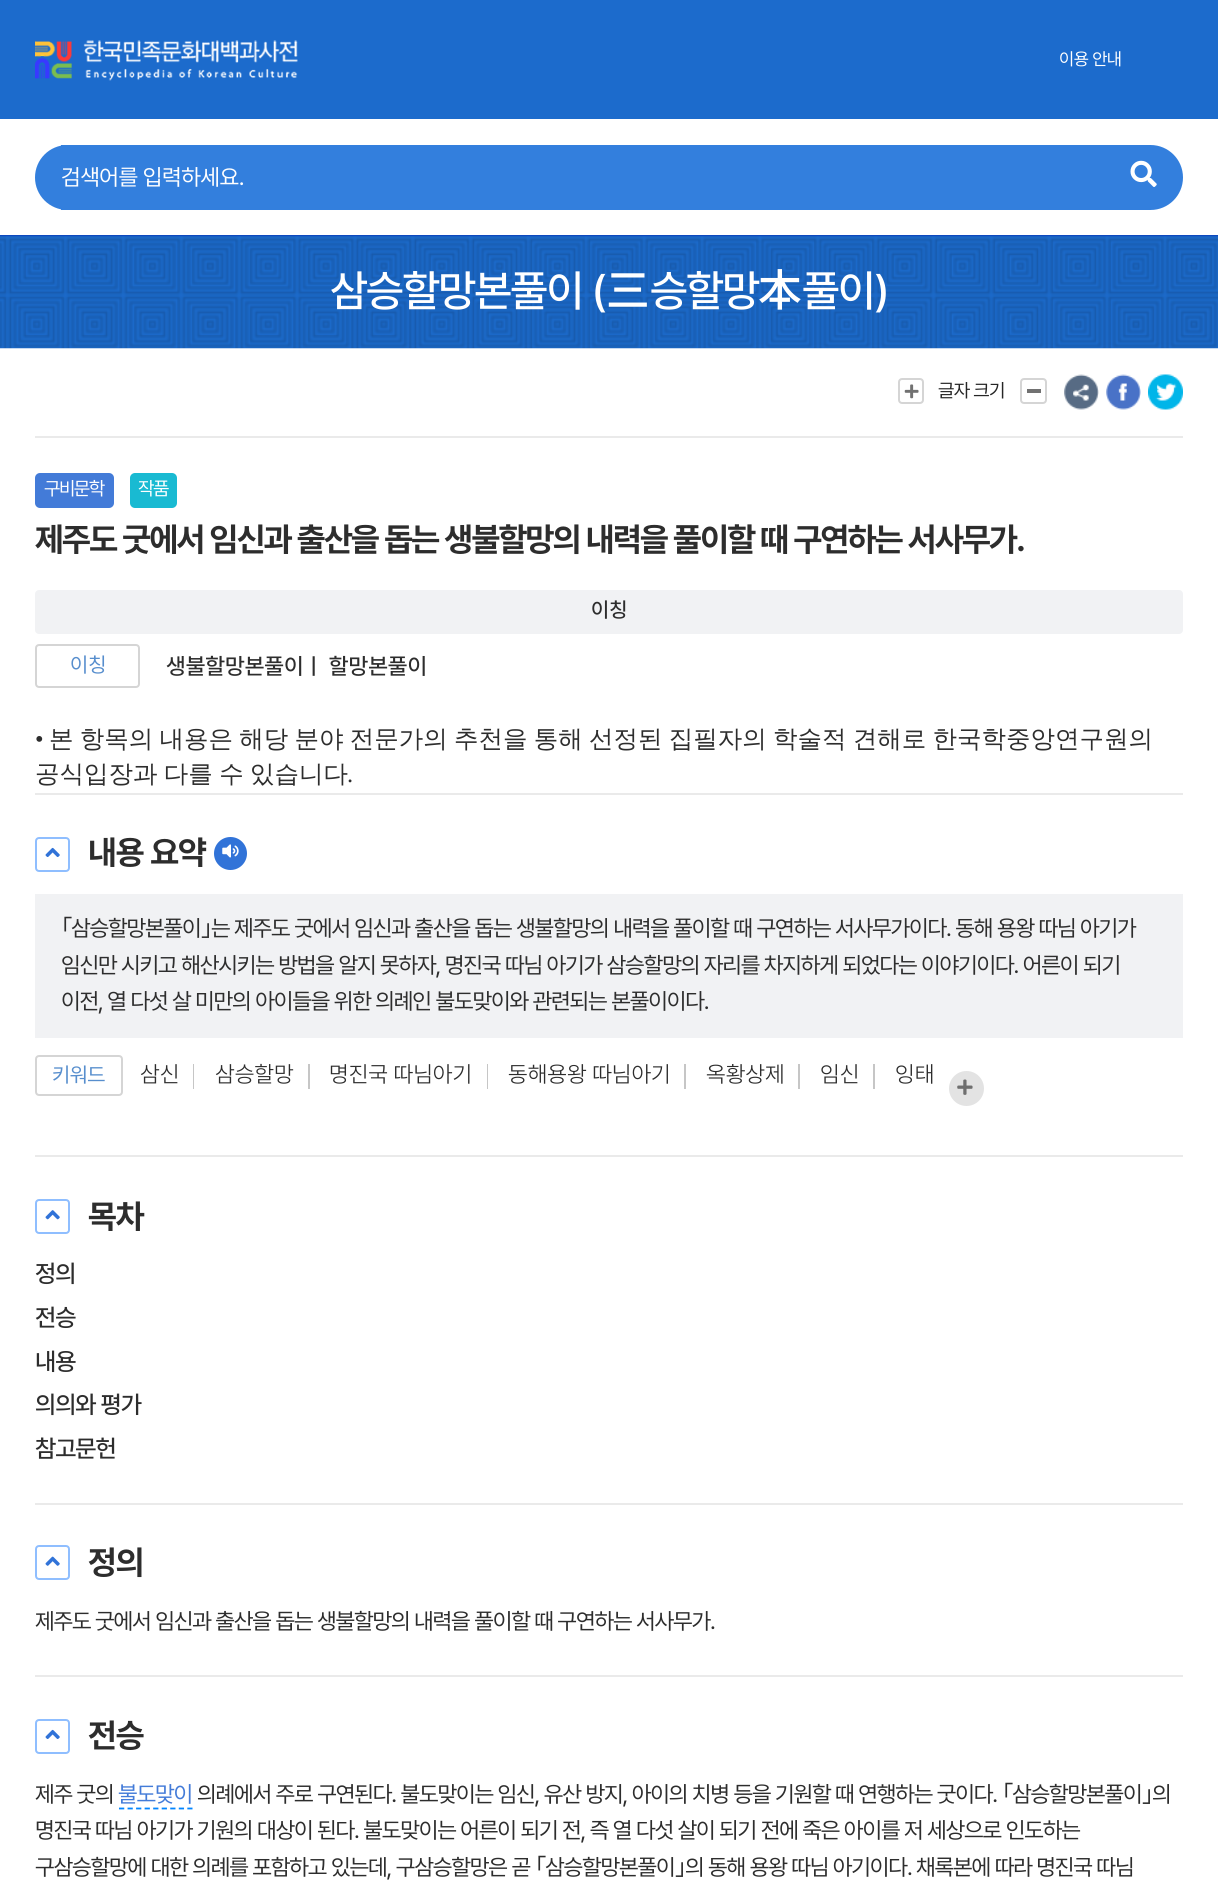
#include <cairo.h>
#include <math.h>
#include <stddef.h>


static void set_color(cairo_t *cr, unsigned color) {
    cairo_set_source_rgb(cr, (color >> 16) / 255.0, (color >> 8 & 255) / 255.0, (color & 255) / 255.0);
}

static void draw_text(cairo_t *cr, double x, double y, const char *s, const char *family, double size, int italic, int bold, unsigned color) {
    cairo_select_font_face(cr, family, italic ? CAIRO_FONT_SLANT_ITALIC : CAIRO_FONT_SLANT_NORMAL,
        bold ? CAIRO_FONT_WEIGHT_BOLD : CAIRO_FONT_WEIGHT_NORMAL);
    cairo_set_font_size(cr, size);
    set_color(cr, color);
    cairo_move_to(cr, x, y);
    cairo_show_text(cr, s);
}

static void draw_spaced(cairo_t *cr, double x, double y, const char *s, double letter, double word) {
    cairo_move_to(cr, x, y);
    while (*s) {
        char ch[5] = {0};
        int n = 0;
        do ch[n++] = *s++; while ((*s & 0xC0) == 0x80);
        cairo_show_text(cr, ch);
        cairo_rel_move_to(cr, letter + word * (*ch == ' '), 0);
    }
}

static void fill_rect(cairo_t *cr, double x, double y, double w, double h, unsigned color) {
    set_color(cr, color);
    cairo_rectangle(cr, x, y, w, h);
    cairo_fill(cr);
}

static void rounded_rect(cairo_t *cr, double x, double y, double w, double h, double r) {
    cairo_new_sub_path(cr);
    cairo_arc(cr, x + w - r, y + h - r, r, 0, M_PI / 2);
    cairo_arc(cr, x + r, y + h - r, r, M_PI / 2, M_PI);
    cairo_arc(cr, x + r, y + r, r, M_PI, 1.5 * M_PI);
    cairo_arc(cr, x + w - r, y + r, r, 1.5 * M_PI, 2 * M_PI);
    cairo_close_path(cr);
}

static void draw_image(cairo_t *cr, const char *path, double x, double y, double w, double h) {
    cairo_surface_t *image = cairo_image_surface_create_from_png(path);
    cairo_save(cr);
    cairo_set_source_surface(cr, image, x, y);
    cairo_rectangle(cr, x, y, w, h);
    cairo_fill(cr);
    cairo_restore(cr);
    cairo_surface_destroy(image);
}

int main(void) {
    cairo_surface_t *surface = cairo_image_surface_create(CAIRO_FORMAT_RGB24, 1218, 1889);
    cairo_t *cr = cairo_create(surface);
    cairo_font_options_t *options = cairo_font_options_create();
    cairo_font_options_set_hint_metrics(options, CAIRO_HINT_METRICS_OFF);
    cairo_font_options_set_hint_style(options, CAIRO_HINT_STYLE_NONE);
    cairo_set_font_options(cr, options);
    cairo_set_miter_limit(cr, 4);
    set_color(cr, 0xFFFFFF);
    cairo_paint(cr);
    fill_rect(cr, 0, 0, 1218, 119, 0x1C6BCC);
    cairo_select_font_face(cr, "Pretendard", CAIRO_FONT_SLANT_NORMAL, CAIRO_FONT_WEIGHT_NORMAL);
    cairo_set_font_size(cr, 17.5);
    set_color(cr, 0xFFFFFF);
    draw_spaced(cr, 1059, 65, "이용 안내", -0.5, 0);
    draw_image(cr, "assets/img1.png", 35, 40, 263, 41);
    fill_rect(cr, 0, 235, 1218, 2, 0x0D48BE);
    set_color(cr, 0x337FDD);
    rounded_rect(cr, 35, 145, 1148, 65, 32.5);
    cairo_fill(cr);
    fill_rect(cr, 61, 145, 6, 65, 0x337FDD);
    cairo_set_font_size(cr, 22.75);
    set_color(cr, 0xFFFFFF);
    draw_spaced(cr, 61, 185, "검색어를 입력하세요.", -0.5, 0);
    draw_image(cr, "assets/img2.png", 1130, 160, 27, 27);
    draw_image(cr, "assets/img3.png", 0, 236, 1218, 113);
    cairo_select_font_face(cr, "Pretendard Medium", CAIRO_FONT_SLANT_NORMAL, CAIRO_FONT_WEIGHT_NORMAL);
    cairo_set_font_size(cr, 43.75);
    draw_spaced(cr, 330, 306, "삼승할망본풀이 (", -1.75, 0);
    draw_text(cr, 606, 306, "三", "Noto Sans CJK KR Medium", 43.75, 0, 0, 0xFFFFFF);
    cairo_select_font_face(cr, "Pretendard Medium", CAIRO_FONT_SLANT_NORMAL, CAIRO_FONT_WEIGHT_NORMAL);
    draw_spaced(cr, 650, 306, "승할망", -1.75, 0);
    draw_text(cr, 758, 306, "本", "Noto Sans CJK KR Medium", 43.75, 0, 0, 0xFFFFFF);
    cairo_select_font_face(cr, "Pretendard Medium", CAIRO_FONT_SLANT_NORMAL, CAIRO_FONT_WEIGHT_NORMAL);
    draw_spaced(cr, 802, 306, "풀이)", -1.75, 0);
    fill_rect(cr, 35, 436, 1148, 2, 0xEAEAEA);
    rounded_rect(cr, 899, 379, 24, 24, 3);
    set_color(cr, 0xD5D5D5);
    cairo_stroke(cr);
    draw_image(cr, "assets/img4.png", 904, 384, 15, 15);
    cairo_select_font_face(cr, "Pretendard", CAIRO_FONT_SLANT_NORMAL, CAIRO_FONT_WEIGHT_NORMAL);
    cairo_set_font_size(cr, 19);
    set_color(cr, 0x262626);
    draw_spaced(cr, 938, 397, "글자 크기", -0.75, 0);
    rounded_rect(cr, 1021, 379, 25, 24, 3);
    set_color(cr, 0xD5D5D5);
    cairo_stroke(cr);
    fill_rect(cr, 1027, 389, 14, 4, 0x717171);
    draw_image(cr, "assets/img5.png", 1064, 374, 35, 36);
    draw_image(cr, "assets/img6.png", 1106, 374, 35, 36);
    draw_image(cr, "assets/img7.png", 1148, 374, 35, 36);
    set_color(cr, 0x437BD8);
    rounded_rect(cr, 35, 473, 79, 35, 5);
    cairo_fill(cr);
    set_color(cr, 0xFFFFFF);
    draw_spaced(cr, 44, 495, "구비문학", -1.5, 0);
    set_color(cr, 0x19BAD2);
    rounded_rect(cr, 130, 473, 47, 35, 5);
    cairo_fill(cr);
    set_color(cr, 0xFFFFFF);
    draw_spaced(cr, 138, 495, "작품", -1.5, 0);
    cairo_select_font_face(cr, "Pretendard", CAIRO_FONT_SLANT_NORMAL, CAIRO_FONT_WEIGHT_BOLD);
    cairo_set_font_size(cr, 33.25);
    set_color(cr, 0x2D2D2D);
    draw_spaced(cr, 35, 551, "제주도 굿에서 임신과 출산을 돕는 생불할망의 내력을 풀이할 때 구연하는 서사무가.", -1.65, 0);
    set_color(cr, 0xF1F2F4);
    rounded_rect(cr, 35, 590, 1148, 44, 4);
    cairo_fill(cr);
    draw_text(cr, 591, 617, "이칭", "Pretendard Medium", 21, 0, 0, 0x2D2D2D);
    rounded_rect(cr, 36, 645, 103, 42, 3);
    set_color(cr, 0xD5D5D5);
    cairo_stroke(cr);
    draw_text(cr, 70, 672, "이칭", "Pretendard", 21, 0, 0, 0x578ECD);
    draw_text(cr, 166, 674, "생불할망본풀이ㅣ 할망본풀이", "Pretendard Medium", 22.75, 0, 0, 0x2D2D2D);
    draw_text(cr, 35, 747, "•", "Liberation Serif", 24.5, 0, 0, 0x2D2D2D);
    cairo_select_font_face(cr, "WenQuanYi Zen Hei Medium", CAIRO_FONT_SLANT_NORMAL, CAIRO_FONT_WEIGHT_NORMAL);
    draw_spaced(cr, 49, 747, "본 항목의 내용은 해당 분야 전문가의 추천을 통해 선정된 집필자의 학술적 견해로 한국학중앙연구원의", 0, -1.1);
    draw_spaced(cr, 35, 782, "공식입장과 다를 수 있습니다", 0, -1);
    draw_text(cr, 347, 782, ".", "Liberation Serif", 24.5, 0, 0, 0x2D2D2D);
    fill_rect(cr, 35, 793, 1148, 2, 0xEAEAEA);
    rounded_rect(cr, 36, 838, 33, 33, 3);
    set_color(cr, 0x8FBEFF);
    cairo_stroke(cr);
    draw_image(cr, "assets/img8.png", 45, 847, 15, 10);
    cairo_select_font_face(cr, "Pretendard", CAIRO_FONT_SLANT_NORMAL, CAIRO_FONT_WEIGHT_BOLD);
    cairo_set_font_size(cr, 33.25);
    set_color(cr, 0x2D2D2D);
    draw_spaced(cr, 88, 864, "내용 요약", -1, 0);
    set_color(cr, 0x3173D8);
    cairo_new_path(cr);
    cairo_arc(cr, 230.5, 853.5, 16.5, 0, 2 * M_PI);
    cairo_fill(cr);
    draw_image(cr, "assets/img9.png", 222, 844, 17, 14);
    fill_rect(cr, 35, 894, 1148, 144, 0xF1F2F4);
    cairo_select_font_face(cr, "Noto Sans CJK KR", CAIRO_FONT_SLANT_NORMAL, CAIRO_FONT_WEIGHT_NORMAL);
    cairo_set_font_size(cr, 22.75);
    set_color(cr, 0x2D2D2D);
    draw_spaced(cr, 61, 936, "｢", -1.15, 0);
    cairo_select_font_face(cr, "Pretendard", CAIRO_FONT_SLANT_NORMAL, CAIRO_FONT_WEIGHT_NORMAL);
    draw_spaced(cr, 71, 936, "삼승할망본풀이", -1.15, 0);
    cairo_select_font_face(cr, "Noto Sans CJK KR", CAIRO_FONT_SLANT_NORMAL, CAIRO_FONT_WEIGHT_NORMAL);
    draw_spaced(cr, 201, 936, "｣", -1.15, 0);
    cairo_select_font_face(cr, "Pretendard", CAIRO_FONT_SLANT_NORMAL, CAIRO_FONT_WEIGHT_NORMAL);
    draw_spaced(cr, 211, 936, "는 제주도 굿에서 임신과 출산을 돕는 생불할망의 내력을 풀이할 때 구연하는 서사무가이다. 동해 용왕 따님 아기가", -1.15, 0);
    draw_spaced(cr, 61, 973, "임신만 시키고 해산시키는 방법을 알지 못하자, 명진국 따님 아기가 삼승할망의 자리를 차지하게 되었다는 이야기이다. 어른이 되기", -1.15, 0);
    draw_spaced(cr, 61, 1009, "이전, 열 다섯 살 미만의 아이들을 위한 의례인 불도맞이와 관련되는 본풀이이다.", -1.15, 0);
    rounded_rect(cr, 36, 1056, 86, 39, 3);
    set_color(cr, 0xD5D5D5);
    cairo_stroke(cr);
    cairo_set_font_size(cr, 21);
    set_color(cr, 0x578ECD);
    draw_spaced(cr, 52, 1082, "키워드", -0.5, 0);
    draw_text(cr, 140, 1082, "삼신", "Pretendard Light", 22.75, 0, 0, 0x2D2D2D);
    fill_rect(cr, 193, 1064, 1, 25, 0xC6C6C6);
    draw_text(cr, 215, 1082, "삼승할망", "Pretendard Light", 22.75, 0, 0, 0x2D2D2D);
    fill_rect(cr, 308, 1064, 2, 25, 0xC6C6C6);
    draw_text(cr, 329, 1082, "명진국 따님아기", "Pretendard Light", 22.75, 0, 0, 0x2D2D2D);
    fill_rect(cr, 487, 1064, 1, 25, 0xC6C6C6);
    draw_text(cr, 508, 1082, "동해용왕 따님아기", "Pretendard Light", 22.75, 0, 0, 0x2D2D2D);
    fill_rect(cr, 684, 1064, 2, 25, 0xC6C6C6);
    draw_text(cr, 706, 1082, "옥황상제", "Pretendard Light", 22.75, 0, 0, 0x2D2D2D);
    fill_rect(cr, 798, 1064, 2, 25, 0xC6C6C6);
    draw_text(cr, 820, 1082, "임신", "Pretendard Light", 22.75, 0, 0, 0x2D2D2D);
    fill_rect(cr, 873, 1064, 2, 25, 0xC6C6C6);
    draw_text(cr, 895, 1082, "잉태", "Pretendard Light", 22.75, 0, 0, 0x2D2D2D);
    set_color(cr, 0xE3E3E3);
    cairo_new_path(cr);
    cairo_arc(cr, 966.5, 1088.5, 17.5, 0, 2 * M_PI);
    cairo_fill(cr);
    draw_image(cr, "assets/img10.png", 957, 1079, 16, 16);
    fill_rect(cr, 35, 1155, 1148, 2, 0xEAEAEA);
    rounded_rect(cr, 36, 1200, 33, 33, 3);
    set_color(cr, 0x8FBEFF);
    cairo_stroke(cr);
    draw_image(cr, "assets/img11.png", 45, 1210, 15, 10);
    cairo_select_font_face(cr, "Pretendard", CAIRO_FONT_SLANT_NORMAL, CAIRO_FONT_WEIGHT_BOLD);
    cairo_set_font_size(cr, 33.25);
    set_color(cr, 0x2D2D2D);
    draw_spaced(cr, 88, 1228, "목차", -1, 0);
    cairo_select_font_face(cr, "Pretendard Medium", CAIRO_FONT_SLANT_NORMAL, CAIRO_FONT_WEIGHT_NORMAL);
    cairo_set_font_size(cr, 24.5);
    draw_spaced(cr, 35, 1282, "정의", -1, 0);
    draw_spaced(cr, 35, 1326, "전승", -1, 0);
    draw_spaced(cr, 35, 1370, "내용", -1, 0);
    draw_spaced(cr, 35, 1413, "의의와 평가", -1, 0);
    draw_spaced(cr, 35, 1457, "참고문헌", -1, 0);
    fill_rect(cr, 35, 1503, 1148, 2, 0xEAEAEA);
    rounded_rect(cr, 36, 1546, 33, 33, 3);
    set_color(cr, 0x8FBEFF);
    cairo_stroke(cr);
    draw_image(cr, "assets/img12.png", 45, 1556, 15, 10);
    cairo_select_font_face(cr, "Pretendard", CAIRO_FONT_SLANT_NORMAL, CAIRO_FONT_WEIGHT_BOLD);
    cairo_set_font_size(cr, 33.25);
    set_color(cr, 0x2D2D2D);
    draw_spaced(cr, 88, 1574, "정의", -1, 0);
    cairo_select_font_face(cr, "Pretendard", CAIRO_FONT_SLANT_NORMAL, CAIRO_FONT_WEIGHT_NORMAL);
    cairo_set_font_size(cr, 22.75);
    draw_spaced(cr, 35, 1629, "제주도 굿에서 임신과 출산을 돕는 생불할망의 내력을 풀이할 때 구연하는 서사무가.", -1.15, 0);
    fill_rect(cr, 35, 1675, 1148, 2, 0xEAEAEA);
    rounded_rect(cr, 36, 1720, 33, 33, 3);
    set_color(cr, 0x8FBEFF);
    cairo_stroke(cr);
    draw_image(cr, "assets/img8.png", 45, 1729, 15, 10);
    cairo_select_font_face(cr, "Pretendard", CAIRO_FONT_SLANT_NORMAL, CAIRO_FONT_WEIGHT_BOLD);
    cairo_set_font_size(cr, 33.25);
    set_color(cr, 0x2D2D2D);
    draw_spaced(cr, 88, 1747, "전승", -1, 0);
    cairo_select_font_face(cr, "Pretendard", CAIRO_FONT_SLANT_NORMAL, CAIRO_FONT_WEIGHT_NORMAL);
    cairo_set_font_size(cr, 22.75);
    draw_spaced(cr, 35, 1802, "제주 굿의", -1.15, 0);
    set_color(cr, 0x437BD8);
    draw_spaced(cr, 118, 1802, "불도맞이", -1.15, 0);
    cairo_new_path(cr);
    cairo_move_to(cr, 119, 1808.5);
    cairo_line_to(cr, 192.5, 1808.5);
    set_color(cr, 0x0285FF);
    cairo_set_line_width(cr, 1.8);
    cairo_set_dash(cr, (double[]){5.25, 3.29}, 2, 0);
    cairo_stroke(cr);
    set_color(cr, 0x2D2D2D);
    draw_spaced(cr, 197, 1802, "의례에서 주로 구연된다. 불도맞이는 임신, 유산 방지, 아이의 치병 등을 기원할 때 연행하는 굿이다.", -1.15, 0);
    cairo_select_font_face(cr, "Noto Sans CJK KR", CAIRO_FONT_SLANT_NORMAL, CAIRO_FONT_WEIGHT_NORMAL);
    draw_spaced(cr, 1002, 1802, "｢", -1.15, 0);
    cairo_select_font_face(cr, "Pretendard", CAIRO_FONT_SLANT_NORMAL, CAIRO_FONT_WEIGHT_NORMAL);
    draw_spaced(cr, 1012, 1802, "삼승할망본풀이", -1.15, 0);
    cairo_select_font_face(cr, "Noto Sans CJK KR", CAIRO_FONT_SLANT_NORMAL, CAIRO_FONT_WEIGHT_NORMAL);
    draw_spaced(cr, 1142, 1802, "｣", -1.15, 0);
    cairo_select_font_face(cr, "Pretendard", CAIRO_FONT_SLANT_NORMAL, CAIRO_FONT_WEIGHT_NORMAL);
    draw_spaced(cr, 1152, 1802, "의", -1.15, 0);
    draw_spaced(cr, 35, 1838, "명진국 따님 아기가 기원의 대상이 된다. 불도맞이는 어른이 되기 전, 즉 열 다섯 살이 되기 전에 죽은 아이를 저 세상으로 인도하는", -1.15, 0);
    draw_spaced(cr, 35, 1875, "구삼승할망에 대한 의례를 포함하고 있는데, 구삼승할망은 곧", -1.15, 0);
    cairo_select_font_face(cr, "Noto Sans CJK KR", CAIRO_FONT_SLANT_NORMAL, CAIRO_FONT_WEIGHT_NORMAL);
    draw_spaced(cr, 535, 1875, "｢", -1.15, 0);
    cairo_select_font_face(cr, "Pretendard", CAIRO_FONT_SLANT_NORMAL, CAIRO_FONT_WEIGHT_NORMAL);
    draw_spaced(cr, 545, 1875, "삼승할망본풀이", -1.15, 0);
    cairo_select_font_face(cr, "Noto Sans CJK KR", CAIRO_FONT_SLANT_NORMAL, CAIRO_FONT_WEIGHT_NORMAL);
    draw_spaced(cr, 675, 1875, "｣", -1.15, 0);
    cairo_select_font_face(cr, "Pretendard", CAIRO_FONT_SLANT_NORMAL, CAIRO_FONT_WEIGHT_NORMAL);
    draw_spaced(cr, 685, 1875, "의 동해 용왕 따님 아기이다. 채록본에 따라 명진국 따님", -1.15, 0);
    cairo_surface_write_to_png(surface, "output.png");
    cairo_font_options_destroy(options);
    cairo_destroy(cr);
    cairo_surface_destroy(surface);
    return 0;
}
